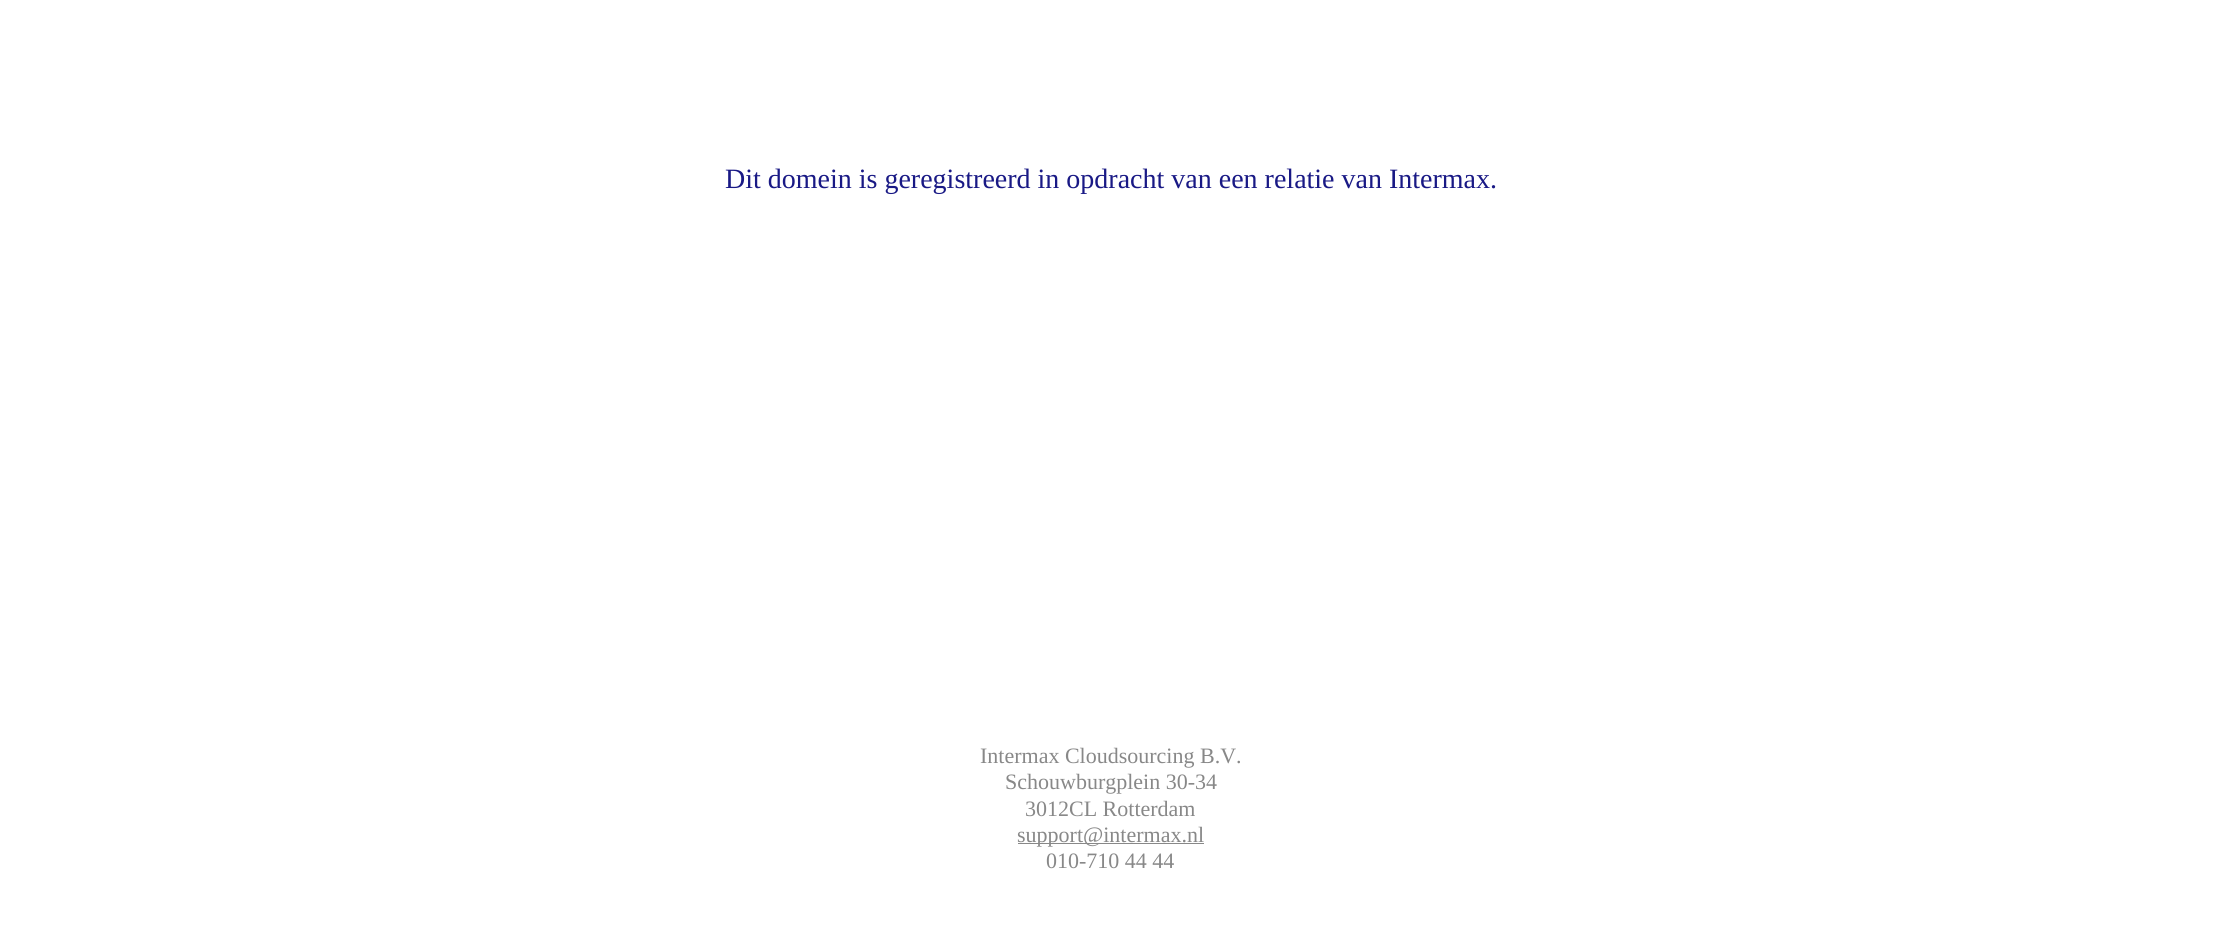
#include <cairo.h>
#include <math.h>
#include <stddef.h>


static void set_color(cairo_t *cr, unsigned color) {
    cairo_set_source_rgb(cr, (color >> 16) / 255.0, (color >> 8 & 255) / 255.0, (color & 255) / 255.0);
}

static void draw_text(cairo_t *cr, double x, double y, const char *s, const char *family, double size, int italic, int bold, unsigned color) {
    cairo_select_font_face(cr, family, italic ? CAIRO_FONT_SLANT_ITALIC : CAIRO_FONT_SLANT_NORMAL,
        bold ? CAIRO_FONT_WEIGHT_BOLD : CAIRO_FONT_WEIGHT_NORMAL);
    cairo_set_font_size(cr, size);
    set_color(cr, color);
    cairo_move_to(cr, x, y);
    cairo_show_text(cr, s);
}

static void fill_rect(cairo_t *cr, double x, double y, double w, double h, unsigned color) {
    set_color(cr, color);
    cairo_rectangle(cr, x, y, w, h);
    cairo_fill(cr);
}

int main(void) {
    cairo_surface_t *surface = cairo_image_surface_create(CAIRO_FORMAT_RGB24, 2221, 939);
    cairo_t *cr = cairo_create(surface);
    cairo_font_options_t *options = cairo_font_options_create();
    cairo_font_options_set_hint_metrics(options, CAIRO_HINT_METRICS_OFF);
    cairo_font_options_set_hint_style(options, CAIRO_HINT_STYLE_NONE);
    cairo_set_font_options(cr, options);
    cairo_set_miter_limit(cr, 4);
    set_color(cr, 0xFFFFFF);
    cairo_paint(cr);
    draw_text(cr, 725, 188, "Dit domein is geregistreerd in opdracht van een relatie van Intermax.", "Liberation Serif", 28, 0, 0, 0x191985);
    draw_text(cr, 980, 763, "Intermax Cloudsourcing B.V.", "Liberation Serif", 22, 0, 0, 0x888888);
    draw_text(cr, 1005, 789, "Schouwburgplein 30-34", "Liberation Serif", 22, 0, 0, 0x888888);
    draw_text(cr, 1025, 816, "3012CL Rotterdam", "Liberation Serif", 22, 0, 0, 0x888888);
    fill_rect(cr, 1018, 843, 186, 1, 0x888888);
    draw_text(cr, 1017, 842, "support@intermax.nl", "Liberation Serif", 22, 0, 0, 0x888888);
    draw_text(cr, 1046, 868, "010-710 44 44", "Liberation Serif", 22, 0, 0, 0x888888);
    cairo_surface_write_to_png(surface, "output.png");
    cairo_font_options_destroy(options);
    cairo_destroy(cr);
    cairo_surface_destroy(surface);
    return 0;
}
